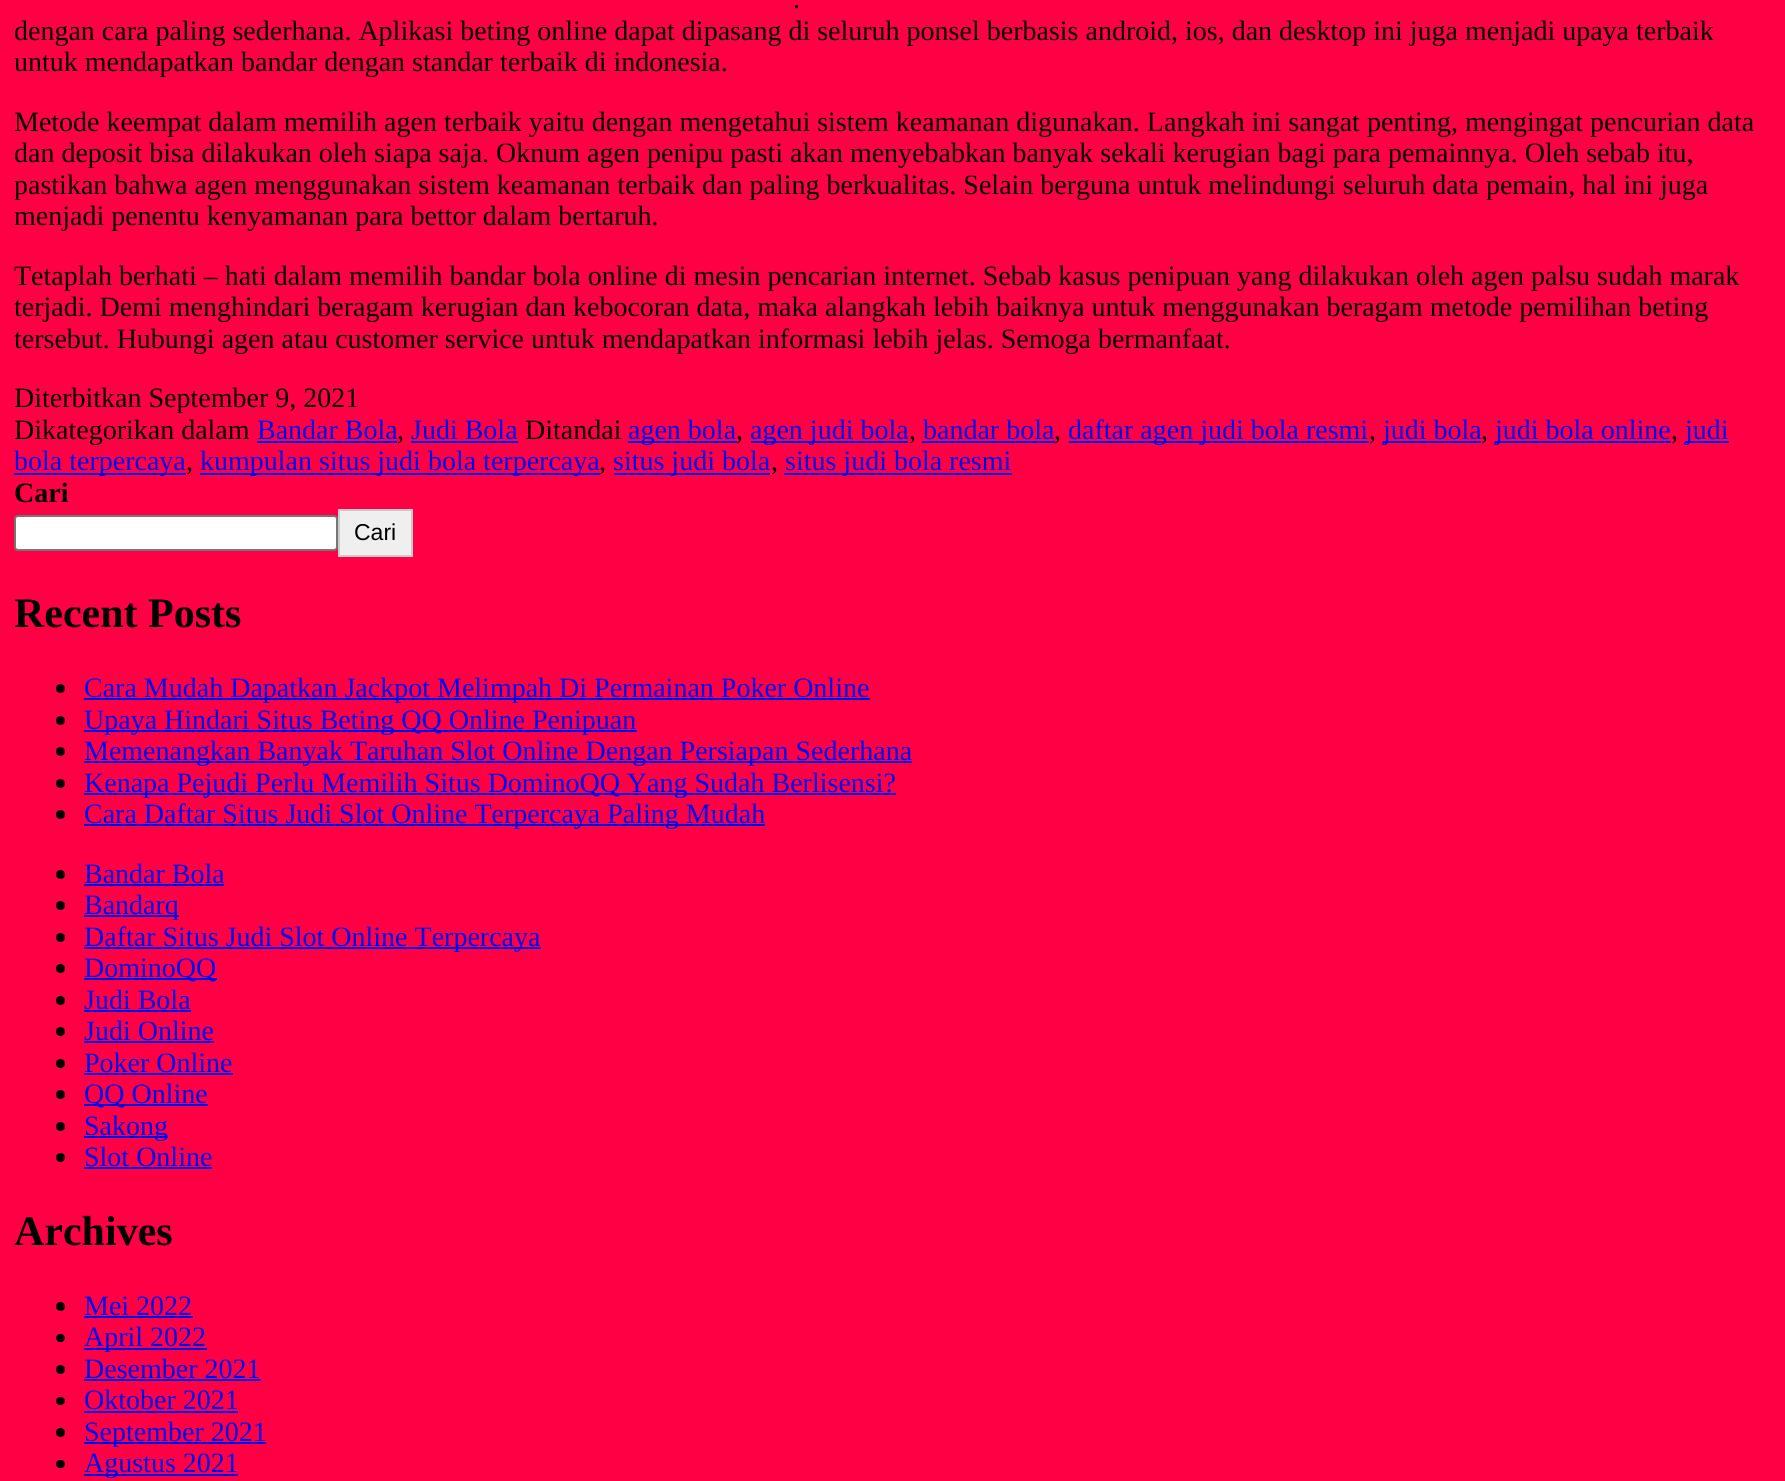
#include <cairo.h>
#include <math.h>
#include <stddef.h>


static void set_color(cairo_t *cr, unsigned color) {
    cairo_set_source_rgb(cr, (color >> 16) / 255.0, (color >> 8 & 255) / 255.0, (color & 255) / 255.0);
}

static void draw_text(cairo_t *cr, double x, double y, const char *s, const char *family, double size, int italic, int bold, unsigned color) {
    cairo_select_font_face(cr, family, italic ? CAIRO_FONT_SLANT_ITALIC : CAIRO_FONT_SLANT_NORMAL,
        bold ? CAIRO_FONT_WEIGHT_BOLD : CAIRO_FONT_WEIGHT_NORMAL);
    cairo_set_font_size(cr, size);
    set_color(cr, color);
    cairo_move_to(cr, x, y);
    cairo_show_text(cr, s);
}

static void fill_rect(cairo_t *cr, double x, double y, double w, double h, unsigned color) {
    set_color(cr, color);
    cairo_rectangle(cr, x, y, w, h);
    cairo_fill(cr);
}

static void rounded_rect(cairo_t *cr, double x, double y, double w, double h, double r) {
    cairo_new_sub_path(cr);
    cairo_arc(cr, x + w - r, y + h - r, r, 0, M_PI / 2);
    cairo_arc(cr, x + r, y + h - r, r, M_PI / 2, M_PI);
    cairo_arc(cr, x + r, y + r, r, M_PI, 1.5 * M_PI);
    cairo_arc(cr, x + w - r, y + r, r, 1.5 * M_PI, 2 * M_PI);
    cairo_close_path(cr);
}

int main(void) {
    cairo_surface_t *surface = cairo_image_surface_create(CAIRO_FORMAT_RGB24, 1785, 1481);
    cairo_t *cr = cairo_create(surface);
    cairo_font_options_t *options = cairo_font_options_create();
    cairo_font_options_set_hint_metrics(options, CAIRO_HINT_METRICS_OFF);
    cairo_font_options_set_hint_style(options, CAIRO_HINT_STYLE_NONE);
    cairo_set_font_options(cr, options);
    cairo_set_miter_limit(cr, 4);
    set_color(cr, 0xFF0044);
    cairo_paint(cr);
    draw_text(cr, 793, 8, ".", "Liberation Serif", 28, 0, 0, 0x000000);
    draw_text(cr, 14, 40, "dengan cara paling sederhana. Aplikasi beting online dapat dipasang di seluruh ponsel berbasis android, ios, dan desktop ini juga menjadi upaya terbaik", "Liberation Serif", 28, 0, 0, 0x000000);
    draw_text(cr, 14, 71, "untuk mendapatkan bandar dengan standar terbaik di indonesia.", "Liberation Serif", 28, 0, 0, 0x000000);
    draw_text(cr, 14, 131, "Metode keempat dalam memilih agen terbaik yaitu dengan mengetahui sistem keamanan digunakan. Langkah ini sangat penting, mengingat pencurian data", "Liberation Serif", 28, 0, 0, 0x000000);
    draw_text(cr, 14, 162, "dan deposit bisa dilakukan oleh siapa saja. Oknum agen penipu pasti akan menyebabkan banyak sekali kerugian bagi para pemainnya. Oleh sebab itu,", "Liberation Serif", 28, 0, 0, 0x000000);
    draw_text(cr, 14, 194, "pastikan bahwa agen menggunakan sistem keamanan terbaik dan paling berkualitas. Selain berguna untuk melindungi seluruh data pemain, hal ini juga", "Liberation Serif", 28, 0, 0, 0x000000);
    draw_text(cr, 14, 225, "menjadi penentu kenyamanan para bettor dalam bertaruh.", "Liberation Serif", 28, 0, 0, 0x000000);
    draw_text(cr, 14, 285, "Tetaplah berhati – hati dalam memilih bandar bola online di mesin pencarian internet. Sebab kasus penipuan yang dilakukan oleh agen palsu sudah marak", "Liberation Serif", 28, 0, 0, 0x000000);
    draw_text(cr, 14, 316, "terjadi. Demi menghindari beragam kerugian dan kebocoran data, maka alangkah lebih baiknya untuk menggunakan beragam metode pemilihan beting", "Liberation Serif", 28, 0, 0, 0x000000);
    draw_text(cr, 14, 348, "tersebut. Hubungi agen atau customer service untuk mendapatkan informasi lebih jelas. Semoga bermanfaat.", "Liberation Serif", 28, 0, 0, 0x000000);
    draw_text(cr, 14, 407, "Diterbitkan September 9, 2021", "Liberation Serif", 28, 0, 0, 0x000000);
    draw_text(cr, 14, 439, "Dikategorikan dalam", "Liberation Serif", 28, 0, 0, 0x000000);
    draw_text(cr, 257, 439, "Bandar Bola", "Liberation Serif", 28, 0, 0, 0x0000EE);
    draw_text(cr, 397, 439, ",", "Liberation Serif", 28, 0, 0, 0x000000);
    fill_rect(cr, 257, 441, 140, 2, 0x0000EE);
    fill_rect(cr, 411, 441, 107, 2, 0x0000EE);
    draw_text(cr, 411, 439, "Judi Bola", "Liberation Serif", 28, 0, 0, 0x0000EE);
    draw_text(cr, 525, 439, "Ditandai", "Liberation Serif", 28, 0, 0, 0x000000);
    fill_rect(cr, 628, 441, 109, 2, 0x0000EE);
    draw_text(cr, 628, 439, "agen bola", "Liberation Serif", 28, 0, 0, 0x0000EE);
    draw_text(cr, 736, 439, ",", "Liberation Serif", 28, 0, 0, 0x000000);
    fill_rect(cr, 751, 441, 157, 2, 0x0000EE);
    draw_text(cr, 750, 439, "agen judi bola", "Liberation Serif", 28, 0, 0, 0x0000EE);
    draw_text(cr, 909, 439, ",", "Liberation Serif", 28, 0, 0, 0x000000);
    draw_text(cr, 923, 439, "bandar bola", "Liberation Serif", 28, 0, 0, 0x0000EE);
    draw_text(cr, 1054, 439, ",", "Liberation Serif", 28, 0, 0, 0x000000);
    fill_rect(cr, 922, 441, 133, 2, 0x0000EE);
    fill_rect(cr, 1069, 441, 300, 2, 0x0000EE);
    draw_text(cr, 1068, 439, "daftar agen judi bola resmi", "Liberation Serif", 28, 0, 0, 0x0000EE);
    draw_text(cr, 1369, 439, ",", "Liberation Serif", 28, 0, 0, 0x000000);
    fill_rect(cr, 1383, 441, 98, 2, 0x0000EE);
    draw_text(cr, 1383, 439, "judi bola", "Liberation Serif", 28, 0, 0, 0x0000EE);
    draw_text(cr, 1481, 439, ",", "Liberation Serif", 28, 0, 0, 0x000000);
    fill_rect(cr, 1495, 441, 176, 2, 0x0000EE);
    draw_text(cr, 1495, 439, "judi bola online", "Liberation Serif", 28, 0, 0, 0x0000EE);
    draw_text(cr, 1671, 439, ",", "Liberation Serif", 28, 0, 0, 0x000000);
    fill_rect(cr, 1685, 441, 44, 2, 0x0000EE);
    draw_text(cr, 1685, 439, "judi", "Liberation Serif", 28, 0, 0, 0x0000EE);
    fill_rect(cr, 14, 473, 172, 2, 0x0000EE);
    draw_text(cr, 14, 470, "bola terpercaya", "Liberation Serif", 28, 0, 0, 0x0000EE);
    draw_text(cr, 186, 470, ",", "Liberation Serif", 28, 0, 0, 0x000000);
    fill_rect(cr, 200, 473, 400, 2, 0x0000EE);
    draw_text(cr, 200, 470, "kumpulan situs judi bola terpercaya", "Liberation Serif", 28, 0, 0, 0x0000EE);
    draw_text(cr, 599, 470, ",", "Liberation Serif", 28, 0, 0, 0x000000);
    fill_rect(cr, 614, 473, 156, 2, 0x0000EE);
    draw_text(cr, 613, 470, "situs judi bola", "Liberation Serif", 28, 0, 0, 0x0000EE);
    draw_text(cr, 771, 470, ",", "Liberation Serif", 28, 0, 0, 0x000000);
    fill_rect(cr, 784, 473, 228, 2, 0x0000EE);
    draw_text(cr, 785, 470, "situs judi bola resmi", "Liberation Serif", 28, 0, 0, 0x0000EE);
    draw_text(cr, 14, 502, "Cari", "Liberation Serif", 28, 0, 1, 0x000000);
    set_color(cr, 0xFFFFFF);
    rounded_rect(cr, 15, 516, 322, 34, 3);
    cairo_fill_preserve(cr);
    set_color(cr, 0x767676);
    cairo_stroke(cr);
    set_color(cr, 0xEFEFEF);
    cairo_rectangle(cr, 339, 510, 73, 46);
    cairo_fill_preserve(cr);
    set_color(cr, 0xCCCCCC);
    cairo_stroke(cr);
    draw_text(cr, 354, 540, "Cari", "Liberation Sans", 23, 0, 0, 0x000000);
    draw_text(cr, 14, 627, "Recent Posts", "Liberation Serif", 42, 0, 1, 0x000000);
    cairo_new_path(cr);
    cairo_arc(cr, 60.5, 688.5, 4.5, 0, 2 * M_PI);
    cairo_fill(cr);
    fill_rect(cr, 84, 698, 786, 2, 0x0000EE);
    draw_text(cr, 84, 697, "Cara Mudah Dapatkan Jackpot Melimpah Di Permainan Poker Online", "Liberation Serif", 28, 0, 0, 0x0000EE);
    set_color(cr, 0x000000);
    cairo_new_path(cr);
    cairo_arc(cr, 60.5, 720.5, 4.5, 0, 2 * M_PI);
    cairo_fill(cr);
    fill_rect(cr, 84, 730, 553, 2, 0x0000EE);
    draw_text(cr, 84, 729, "Upaya Hindari Situs Beting QQ Online Penipuan", "Liberation Serif", 28, 0, 0, 0x0000EE);
    set_color(cr, 0x000000);
    cairo_new_path(cr);
    cairo_arc(cr, 60.5, 751.5, 4.5, 0, 2 * M_PI);
    cairo_fill(cr);
    fill_rect(cr, 84, 761, 828, 2, 0x0000EE);
    draw_text(cr, 84, 760, "Memenangkan Banyak Taruhan Slot Online Dengan Persiapan Sederhana", "Liberation Serif", 28, 0, 0, 0x0000EE);
    set_color(cr, 0x000000);
    cairo_new_path(cr);
    cairo_arc(cr, 60.5, 783.5, 4.5, 0, 2 * M_PI);
    cairo_fill(cr);
    fill_rect(cr, 84, 793, 812, 2, 0x0000EE);
    draw_text(cr, 84, 792, "Kenapa Pejudi Perlu Memilih Situs DominoQQ Yang Sudah Berlisensi?", "Liberation Serif", 28, 0, 0, 0x0000EE);
    set_color(cr, 0x000000);
    cairo_new_path(cr);
    cairo_arc(cr, 60.5, 814.5, 4.5, 0, 2 * M_PI);
    cairo_fill(cr);
    fill_rect(cr, 84, 824, 681, 2, 0x0000EE);
    draw_text(cr, 84, 823, "Cara Daftar Situs Judi Slot Online Terpercaya Paling Mudah", "Liberation Serif", 28, 0, 0, 0x0000EE);
    set_color(cr, 0x000000);
    cairo_new_path(cr);
    cairo_arc(cr, 60.5, 874.5, 4.5, 0, 2 * M_PI);
    cairo_fill(cr);
    draw_text(cr, 84, 883, "Bandar Bola", "Liberation Serif", 28, 0, 0, 0x0000EE);
    fill_rect(cr, 84, 884, 140, 2, 0x0000EE);
    set_color(cr, 0x000000);
    cairo_new_path(cr);
    cairo_arc(cr, 60.5, 905.5, 4.5, 0, 2 * M_PI);
    cairo_fill(cr);
    fill_rect(cr, 84, 915, 95, 2, 0x0000EE);
    draw_text(cr, 84, 914, "Bandarq", "Liberation Serif", 28, 0, 0, 0x0000EE);
    set_color(cr, 0x000000);
    cairo_new_path(cr);
    cairo_arc(cr, 60.5, 937.5, 4.5, 0, 2 * M_PI);
    cairo_fill(cr);
    fill_rect(cr, 84, 947, 457, 2, 0x0000EE);
    draw_text(cr, 84, 946, "Daftar Situs Judi Slot Online Terpercaya", "Liberation Serif", 28, 0, 0, 0x0000EE);
    set_color(cr, 0x000000);
    cairo_new_path(cr);
    cairo_arc(cr, 60.5, 968.5, 4.5, 0, 2 * M_PI);
    cairo_fill(cr);
    fill_rect(cr, 84, 978, 133, 2, 0x0000EE);
    draw_text(cr, 84, 977, "DominoQQ", "Liberation Serif", 28, 0, 0, 0x0000EE);
    set_color(cr, 0x000000);
    cairo_new_path(cr);
    cairo_arc(cr, 60.5, 1000.5, 4.5, 0, 2 * M_PI);
    cairo_fill(cr);
    draw_text(cr, 84, 1009, "Judi Bola", "Liberation Serif", 28, 0, 0, 0x0000EE);
    fill_rect(cr, 84, 1010, 107, 2, 0x0000EE);
    set_color(cr, 0x000000);
    cairo_new_path(cr);
    cairo_arc(cr, 60.5, 1031.5, 4.5, 0, 2 * M_PI);
    cairo_fill(cr);
    draw_text(cr, 84, 1040, "Judi Online", "Liberation Serif", 28, 0, 0, 0x0000EE);
    fill_rect(cr, 84, 1041, 130, 2, 0x0000EE);
    set_color(cr, 0x000000);
    cairo_new_path(cr);
    cairo_arc(cr, 60.5, 1063.5, 4.5, 0, 2 * M_PI);
    cairo_fill(cr);
    draw_text(cr, 84, 1072, "Poker Online", "Liberation Serif", 28, 0, 0, 0x0000EE);
    fill_rect(cr, 84, 1073, 149, 2, 0x0000EE);
    set_color(cr, 0x000000);
    cairo_new_path(cr);
    cairo_arc(cr, 60.5, 1094.5, 4.5, 0, 2 * M_PI);
    cairo_fill(cr);
    fill_rect(cr, 84, 1104, 124, 2, 0x0000EE);
    draw_text(cr, 84, 1103, "QQ Online", "Liberation Serif", 28, 0, 0, 0x0000EE);
    set_color(cr, 0x000000);
    cairo_new_path(cr);
    cairo_arc(cr, 60.5, 1126.5, 4.5, 0, 2 * M_PI);
    cairo_fill(cr);
    fill_rect(cr, 84, 1136, 84, 2, 0x0000EE);
    draw_text(cr, 84, 1135, "Sakong", "Liberation Serif", 28, 0, 0, 0x0000EE);
    set_color(cr, 0x000000);
    cairo_new_path(cr);
    cairo_arc(cr, 60.5, 1157.5, 4.5, 0, 2 * M_PI);
    cairo_fill(cr);
    draw_text(cr, 84, 1166, "Slot Online", "Liberation Serif", 28, 0, 0, 0x0000EE);
    fill_rect(cr, 84, 1167, 128, 2, 0x0000EE);
    draw_text(cr, 14, 1245, "Archives", "Liberation Serif", 42, 0, 1, 0x000000);
    cairo_new_path(cr);
    cairo_arc(cr, 60.5, 1306.5, 4.5, 0, 2 * M_PI);
    cairo_fill(cr);
    draw_text(cr, 84, 1315, "Mei 2022", "Liberation Serif", 28, 0, 0, 0x0000EE);
    fill_rect(cr, 84, 1316, 109, 2, 0x0000EE);
    set_color(cr, 0x000000);
    rounded_rect(cr, 56, 1334, 9, 8, 4);
    cairo_fill(cr);
    fill_rect(cr, 84, 1348, 123, 2, 0x0000EE);
    draw_text(cr, 84, 1346, "April 2022", "Liberation Serif", 28, 0, 0, 0x0000EE);
    set_color(cr, 0x000000);
    cairo_new_path(cr);
    cairo_arc(cr, 60.5, 1369.5, 4.5, 0, 2 * M_PI);
    cairo_fill(cr);
    draw_text(cr, 84, 1378, "Desember 2021", "Liberation Serif", 28, 0, 0, 0x0000EE);
    fill_rect(cr, 84, 1379, 177, 2, 0x0000EE);
    set_color(cr, 0x000000);
    rounded_rect(cr, 56, 1397, 9, 8, 4);
    cairo_fill(cr);
    draw_text(cr, 84, 1409, "Oktober 2021", "Liberation Serif", 28, 0, 0, 0x0000EE);
    fill_rect(cr, 84, 1411, 154, 2, 0x0000EE);
    set_color(cr, 0x000000);
    cairo_new_path(cr);
    cairo_arc(cr, 60.5, 1432.5, 4.5, 0, 2 * M_PI);
    cairo_fill(cr);
    fill_rect(cr, 84, 1442, 182, 2, 0x0000EE);
    draw_text(cr, 84, 1441, "September 2021", "Liberation Serif", 28, 0, 0, 0x0000EE);
    set_color(cr, 0x000000);
    rounded_rect(cr, 56, 1460, 9, 8, 4);
    cairo_fill(cr);
    fill_rect(cr, 84, 1474, 154, 2, 0x0000EE);
    draw_text(cr, 84, 1472, "Agustus 2021", "Liberation Serif", 28, 0, 0, 0x0000EE);
    cairo_surface_write_to_png(surface, "output.png");
    cairo_font_options_destroy(options);
    cairo_destroy(cr);
    cairo_surface_destroy(surface);
    return 0;
}
